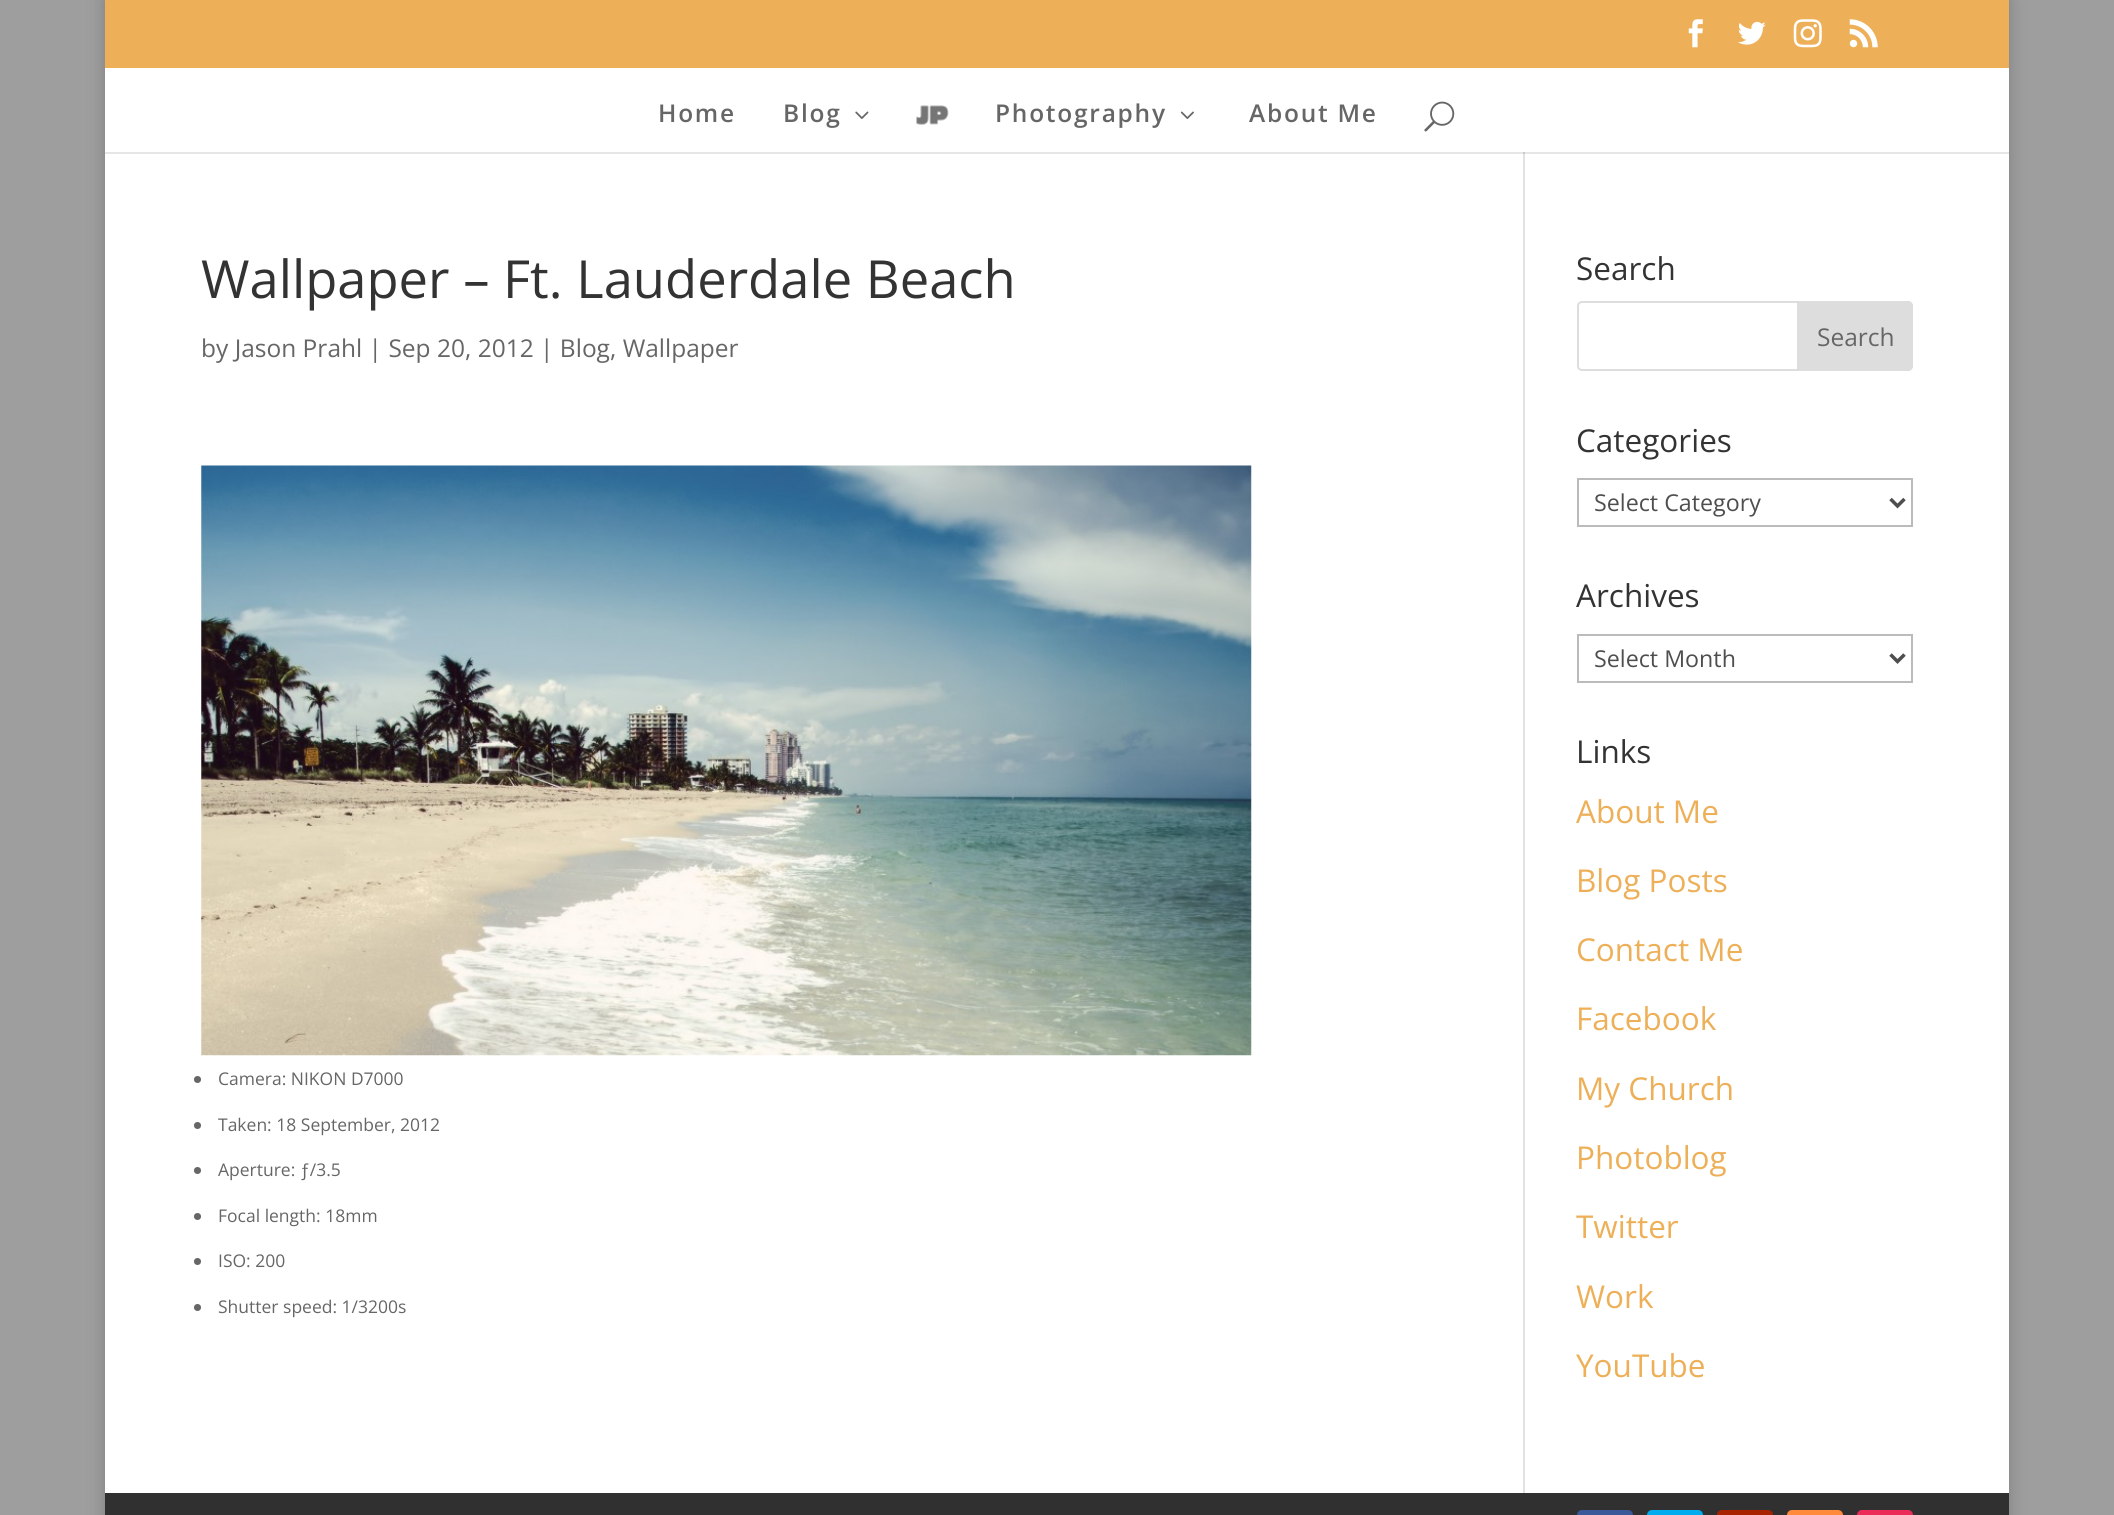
import math
import cairo


def write_spaced(ctx, x, y, s, letter, word):
	ctx.move_to(x, y)
	for ch in s:
		ctx.show_text(ch)
		ctx.rel_move_to(letter + word * (ch == ' '), 0)

def round_path(ctx, x, y, w, h, r):
	ctx.new_sub_path()
	for i, (u, v) in enumerate([(x + w - r, y + h - r), (x + r, y + h - r), (x + r, y + r), (x + w - r, y + r)]):
		ctx.arc(u, v, r, i * math.pi / 2, (i + 1) * math.pi / 2)
	ctx.close_path()

def blur_box(ctx, x, y, w, h, r, blur, alpha):
	ctx.push_group_with_content(cairo.CONTENT_ALPHA)
	ctx.set_operator(cairo.OPERATOR_SOURCE)
	for i in range(15, -16, -2):
		e = blur * i / 6
		if min(w, h) + 2 * e > 0:
			ctx.set_source_rgba(0, 0, 0, alpha * math.erfc((i - 1) / 8.5) / 2)
			round_path(ctx, x - e, y - e, w + 2 * e, h + 2 * e, max(0, min(r + e + blur * .6, min(w, h) / 2 + e)))
			ctx.fill()
	ctx.mask(ctx.pop_group())

def paste(ctx, path, x, y, w, h):
	ctx.save()
	ctx.set_source_surface(cairo.ImageSurface.create_from_png(path), x, y)
	ctx.rectangle(x, y, w, h)
	ctx.fill()
	ctx.restore()

def draw(ctx):
	ctx.set_source_rgb(0.62, 0.62, 0.62)
	ctx.paint()
	ctx.set_source_rgb(0, 0, 0)
	blur_box(ctx, 105, 0, 1904, 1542, 0, 9, 0.2)
	ctx.set_source_rgb(0.929, 0.69, 0.349)
	ctx.rectangle(105, 0, 1904, 68)
	ctx.fill()
	paste(ctx, 'media/1.png', 1688, 19, 15, 29)
	paste(ctx, 'media/2.png', 1738, 21, 28, 24)
	paste(ctx, 'media/3.png', 1793, 19, 29, 29)
	paste(ctx, 'media/4.png', 1849, 19, 29, 29)
	ctx.set_source_rgb(1, 1, 1)
	ctx.rectangle(105, 154, 1904, 1339)
	ctx.fill()
	ctx.set_source_rgb(0.902, 0.902, 0.902)
	ctx.rectangle(105, 152, 1904, 2)
	ctx.fill()
	ctx.set_source_rgb(0.886, 0.886, 0.886)
	ctx.rectangle(1523, 151, 2, 1342)
	ctx.fill()
	ctx.set_source_rgb(1, 1, 1)
	ctx.rectangle(105, 68, 1904, 84)
	ctx.fill()
	ctx.select_font_face('Open Sans SemiBold')
	ctx.set_font_size(24.5)
	ctx.set_source_rgb(0.4, 0.4, 0.4)
	write_spaced(ctx, 658, 122, 'Home', 1.75, 0)
	write_spaced(ctx, 783, 122, 'Blog', 1.75, 0)
	paste(ctx, 'media/5.png', 855, 111, 14, 8)
	paste(ctx, 'media/6.png', 916, 105, 33, 20)
	write_spaced(ctx, 995, 122, 'Photography', 1.75, 0)
	paste(ctx, 'media/7.png', 1180, 111, 14, 8)
	write_spaced(ctx, 1249, 122, 'About Me', 1.75, 0)
	paste(ctx, 'media/8.png', 1424, 101, 31, 31)
	ctx.set_source_rgb(0.796, 0.796, 0.796)
	ctx.rectangle(1523, 152, 2, 2)
	ctx.fill()
	ctx.select_font_face('Open Sans')
	ctx.set_font_size(52.5)
	ctx.set_source_rgb(0.2, 0.2, 0.2)
	ctx.move_to(201, 298)
	ctx.show_text('Wallpaper – Ft. Lauderdale Beach')
	ctx.set_font_size(24.5)
	ctx.set_source_rgb(0.4, 0.4, 0.4)
	ctx.move_to(201, 357)
	ctx.show_text('by Jason Prahl | Sep 20, 2012 | Blog, Wallpaper')
	paste(ctx, 'media/9.png', 201, 465, 1051, 591)
	ctx.arc(197.5, 1079.5, 3.5, 0, 2 * math.pi)
	ctx.fill()
	ctx.set_font_size(17.5)
	ctx.move_to(218, 1085)
	ctx.show_text('Camera: NIKON D7000')
	ctx.new_path()
	ctx.arc(197.5, 1125.5, 3.5, 0, 2 * math.pi)
	ctx.fill()
	ctx.move_to(218, 1131)
	ctx.show_text('Taken: 18 September, 2012')
	ctx.new_path()
	ctx.arc(197.5, 1170.5, 3.5, 0, 2 * math.pi)
	ctx.fill()
	ctx.move_to(218, 1176)
	ctx.show_text('Aperture: ƒ/3.5')
	ctx.new_path()
	ctx.arc(197.5, 1216.5, 3.5, 0, 2 * math.pi)
	ctx.fill()
	ctx.move_to(218, 1222)
	ctx.show_text('Focal length: 18mm')
	ctx.new_path()
	ctx.arc(197.5, 1261.5, 3.5, 0, 2 * math.pi)
	ctx.fill()
	ctx.move_to(218, 1267)
	ctx.show_text('ISO: 200')
	ctx.new_path()
	ctx.arc(197.5, 1307.5, 3.5, 0, 2 * math.pi)
	ctx.fill()
	ctx.move_to(218, 1313)
	ctx.show_text('Shutter speed: 1/3200s')
	ctx.set_font_size(31.5)
	ctx.set_source_rgb(0.2, 0.2, 0.2)
	ctx.move_to(1576, 280)
	ctx.show_text('Search')
	round_path(ctx, 1578, 302, 334, 68, 4)
	ctx.set_source_rgb(0.867, 0.867, 0.867)
	ctx.stroke()
	ctx.new_path()
	ctx.move_to(1798, 302)
	ctx.line_to(1908, 302)
	ctx.curve_to(1910, 302, 1912, 304, 1912, 306)
	ctx.line_to(1912, 366)
	ctx.curve_to(1912, 368, 1910, 370, 1908, 370)
	ctx.line_to(1798, 370)
	ctx.close_path()
	ctx.fill_preserve()
	ctx.stroke()
	ctx.set_font_size(24.5)
	ctx.set_source_rgb(0.4, 0.4, 0.4)
	ctx.move_to(1817, 346)
	ctx.show_text('Search')
	ctx.set_font_size(31.5)
	ctx.set_source_rgb(0.2, 0.2, 0.2)
	ctx.move_to(1576, 452)
	ctx.show_text('Categories')
	ctx.rectangle(1578, 479, 334, 47)
	ctx.set_source_rgb(0.733, 0.733, 0.733)
	ctx.stroke()
	ctx.new_path()
	ctx.move_to(1890.5, 499)
	ctx.line_to(1897.5, 506)
	ctx.line_to(1904.5, 499)
	ctx.set_source_rgb(0.306, 0.306, 0.306)
	ctx.set_line_width(3.5)
	ctx.stroke()
	ctx.set_font_size(23.25)
	ctx.move_to(1594, 511)
	ctx.show_text('Select Category')
	ctx.set_font_size(31.5)
	ctx.set_source_rgb(0.2, 0.2, 0.2)
	ctx.move_to(1576, 607)
	ctx.show_text('Archives')
	ctx.rectangle(1578, 635, 334, 47)
	ctx.set_source_rgb(0.733, 0.733, 0.733)
	ctx.set_line_width(2)
	ctx.stroke()
	ctx.new_path()
	ctx.move_to(1890.5, 654.5)
	ctx.line_to(1897.5, 661.5)
	ctx.line_to(1904.5, 654.5)
	ctx.set_source_rgb(0.306, 0.306, 0.306)
	ctx.set_line_width(3.5)
	ctx.stroke()
	ctx.set_font_size(23.25)
	ctx.move_to(1594, 667)
	ctx.show_text('Select Month')
	ctx.set_font_size(31.5)
	ctx.set_source_rgb(0.2, 0.2, 0.2)
	ctx.move_to(1576, 763)
	ctx.show_text('Links')
	ctx.set_source_rgb(0.929, 0.69, 0.349)
	for x, y, s in [
		(1576, 823, 'About Me'),
		(1576, 892, 'Blog Posts'),
		(1576, 961, 'Contact Me'),
		(1576, 1030, 'Facebook'),
		(1576, 1100, 'My Church'),
		(1576, 1169, 'Photoblog'),
		(1576, 1238, 'Twitter'),
		(1576, 1308, 'Work'),
		(1576, 1377, 'YouTube'),
	]:
		ctx.move_to(x, y)
		ctx.show_text(s)
	ctx.set_source_rgb(0.188, 0.188, 0.188)
	ctx.rectangle(105, 1493, 1904, 22)
	ctx.fill()
	ctx.set_source_rgb(0.231, 0.349, 0.596)
	round_path(ctx, 1577, 1510, 56, 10, 5)
	ctx.fill()
	ctx.set_source_rgb(0, 0.675, 0.929)
	round_path(ctx, 1647, 1510, 56, 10, 5)
	ctx.fill()
	ctx.set_source_rgb(0.659, 0.141, 0)
	round_path(ctx, 1717, 1510, 56, 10, 5)
	ctx.fill()
	ctx.set_source_rgb(1, 0.541, 0.235)
	round_path(ctx, 1787, 1510, 56, 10, 5)
	ctx.fill()
	ctx.set_source_rgb(0.918, 0.173, 0.349)
	round_path(ctx, 1857, 1510, 56, 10, 5)
	ctx.fill()


surface = cairo.ImageSurface(cairo.FORMAT_RGB24, 2114, 1515)
ctx = cairo.Context(surface)
options = cairo.FontOptions()
options.set_hint_metrics(cairo.HINT_METRICS_OFF)
options.set_hint_style(cairo.HINT_STYLE_NONE)
ctx.set_font_options(options)
ctx.set_miter_limit(4)
draw(ctx)
surface.write_to_png('image.png')
